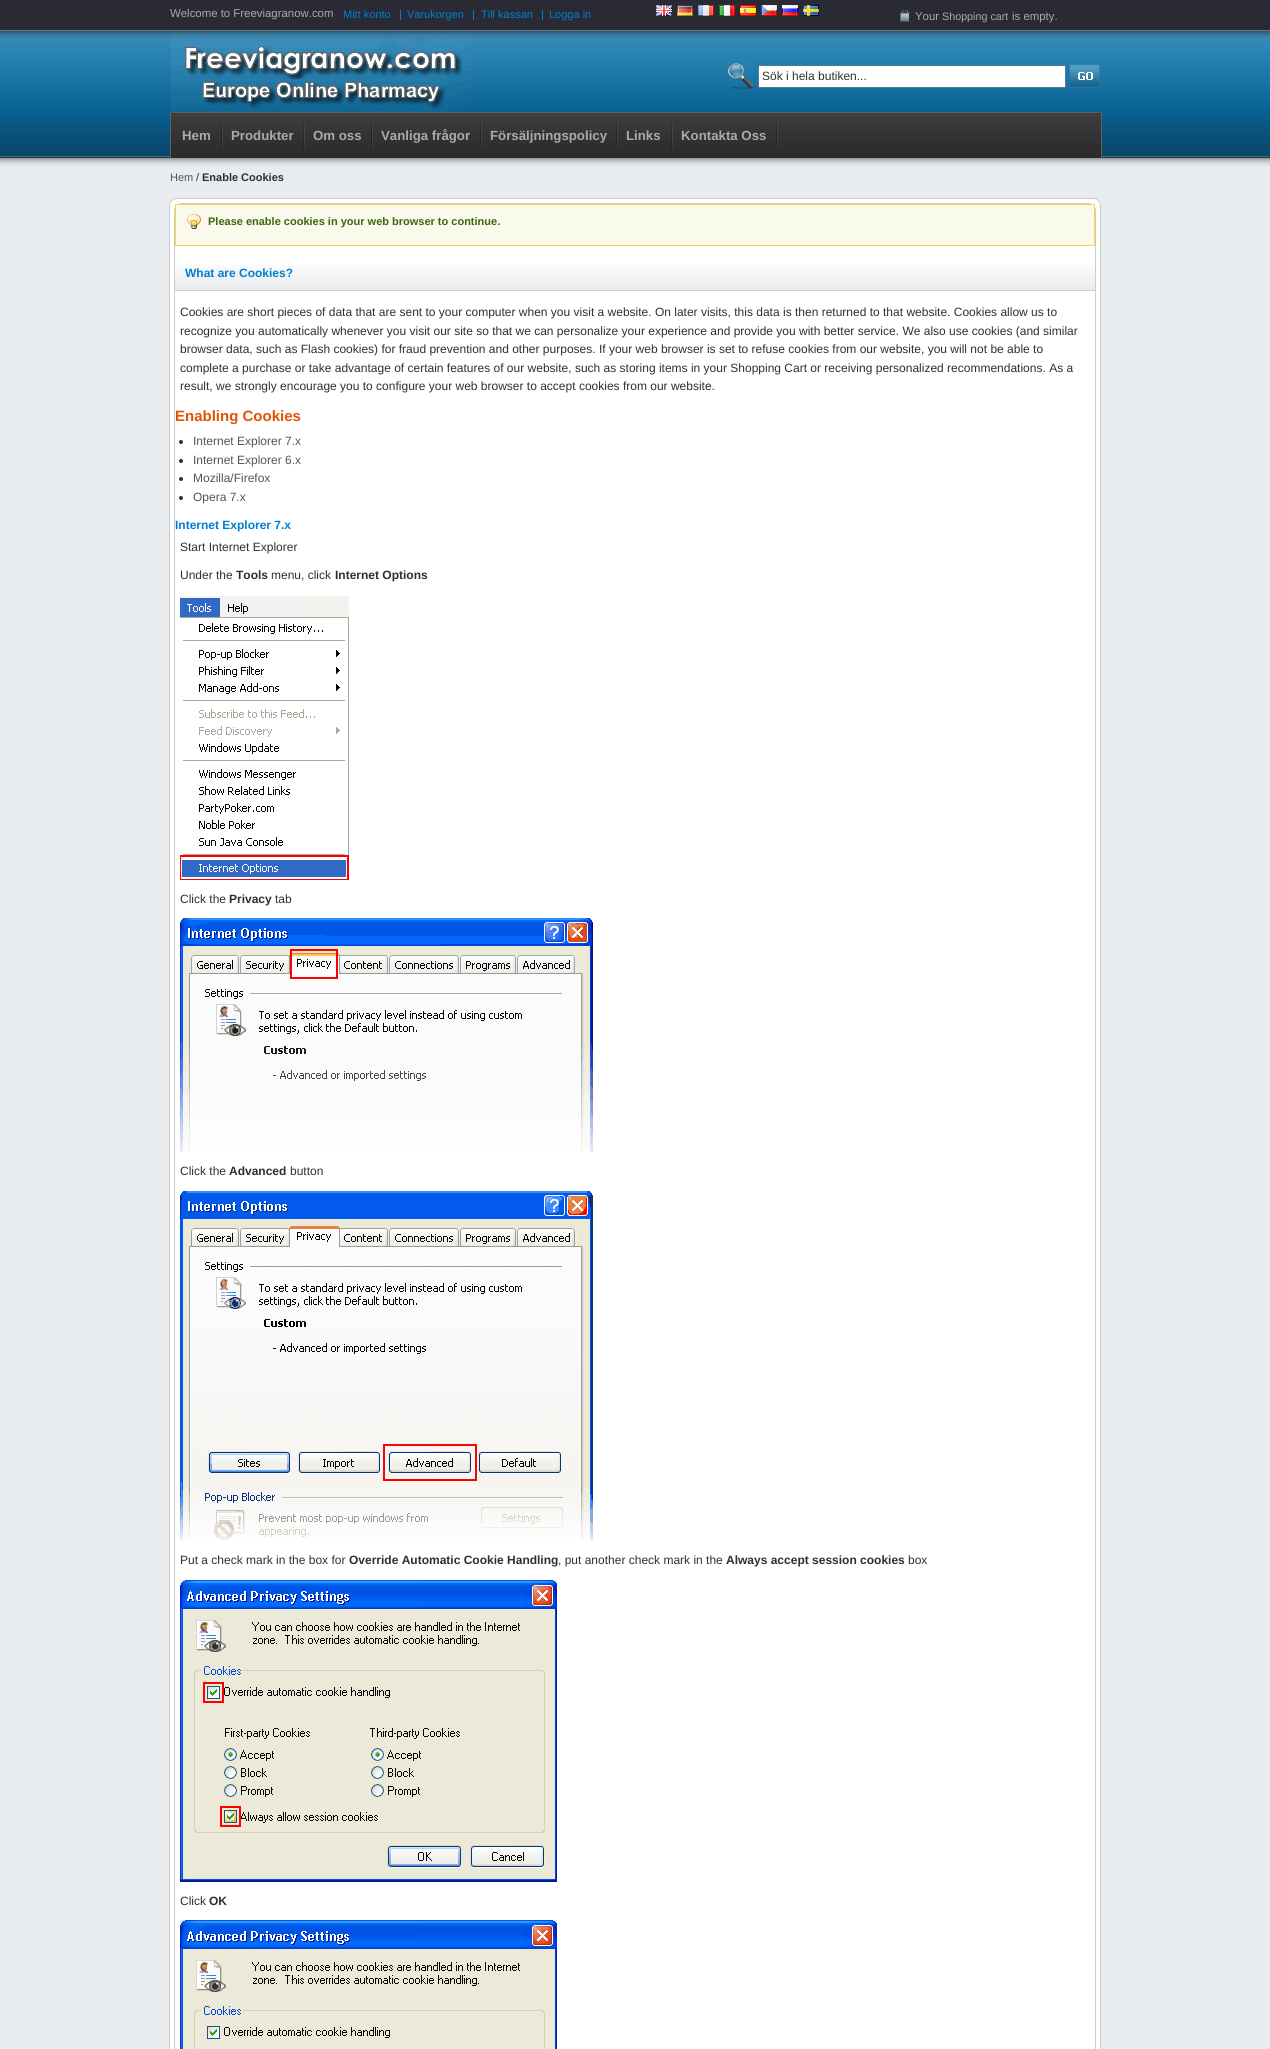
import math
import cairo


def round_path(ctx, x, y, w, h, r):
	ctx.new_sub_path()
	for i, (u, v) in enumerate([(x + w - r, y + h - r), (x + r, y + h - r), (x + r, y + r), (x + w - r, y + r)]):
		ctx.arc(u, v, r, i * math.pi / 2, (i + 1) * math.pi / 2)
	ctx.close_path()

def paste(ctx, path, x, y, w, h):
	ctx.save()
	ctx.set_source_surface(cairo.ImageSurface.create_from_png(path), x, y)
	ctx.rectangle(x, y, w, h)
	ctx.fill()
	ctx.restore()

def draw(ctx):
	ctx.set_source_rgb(0.914, 0.925, 0.933)
	ctx.paint()
	paste(ctx, 'media/1.png', 0, 0, 1270, 158)
	ctx.select_font_face('Liberation Sans')
	ctx.set_font_size(11.4)
	ctx.set_source_rgb(0.667, 0.667, 0.667)
	ctx.move_to(170, 17)
	ctx.show_text('Welcome to Freeviagranow.com')
	ctx.set_font_size(11)
	ctx.set_source_rgb(0, 0.494, 0.827)
	ctx.move_to(343, 18)
	ctx.show_text('Mitt konto')
	ctx.rectangle(400, 10, 1, 10)
	ctx.fill()
	ctx.move_to(407, 18)
	ctx.show_text('Varukorgen')
	ctx.rectangle(473, 10, 1, 10)
	ctx.fill()
	ctx.move_to(481, 18)
	ctx.show_text('Till kassan')
	ctx.rectangle(542, 10, 1, 10)
	ctx.fill()
	ctx.move_to(549, 18)
	ctx.show_text('Logga in')
	paste(ctx, 'media/2.png', 656, 5, 16, 11)
	paste(ctx, 'media/3.png', 677, 5, 16, 11)
	paste(ctx, 'media/4.png', 698, 5, 16, 11)
	paste(ctx, 'media/5.png', 719, 5, 16, 11)
	paste(ctx, 'media/6.png', 740, 5, 16, 11)
	paste(ctx, 'media/7.png', 761, 5, 16, 11)
	paste(ctx, 'media/8.png', 782, 5, 16, 11)
	paste(ctx, 'media/9.png', 803, 5, 16, 11)
	paste(ctx, 'media/10.png', 900, 10, 10, 12)
	ctx.set_font_size(11.4)
	ctx.set_source_rgb(0.667, 0.667, 0.667)
	ctx.move_to(915, 20)
	ctx.show_text('Your')
	ctx.set_font_size(10.75)
	ctx.move_to(942, 20)
	ctx.show_text('Shopping cart')
	ctx.set_font_size(11.4)
	ctx.move_to(1012, 20)
	ctx.show_text('is empty.')
	paste(ctx, 'media/11.png', 170, 33, 302, 79)
	paste(ctx, 'media/12.png', 728, 63, 26, 26)
	ctx.set_source_rgb(1, 1, 1)
	ctx.rectangle(758.5, 65.5, 307, 22)
	ctx.fill_preserve()
	ctx.set_source_rgb(0.318, 0.482, 0.573)
	ctx.set_line_width(1)
	ctx.stroke()
	ctx.set_font_size(12)
	ctx.set_source_rgb(0.184, 0.184, 0.184)
	ctx.move_to(762, 80)
	ctx.show_text('Sök i hela butiken...')
	paste(ctx, 'media/13.png', 1069, 64, 31, 24)
	paste(ctx, 'media/14.png', 171, 113, 930, 45)
	ctx.set_source_rgb(0.376, 0.376, 0.376)
	ctx.rectangle(170, 112, 932, 1)
	ctx.rectangle(1101, 112, 1, 46)
	ctx.rectangle(170, 112, 1, 46)
	ctx.fill()
	paste(ctx, 'media/15.png', 221, 121, 2, 30)
	ctx.select_font_face('Liberation Sans', cairo.FONT_SLANT_NORMAL, cairo.FONT_WEIGHT_BOLD)
	ctx.set_font_size(13.25)
	ctx.set_source_rgb(0.667, 0.667, 0.667)
	ctx.move_to(182, 140)
	ctx.show_text('Hem')
	paste(ctx, 'media/15.png', 303, 121, 2, 30)
	ctx.move_to(231, 140)
	ctx.show_text('Produkter')
	paste(ctx, 'media/15.png', 371, 121, 2, 30)
	ctx.move_to(313, 140)
	ctx.show_text('Om oss')
	paste(ctx, 'media/15.png', 480, 121, 2, 30)
	ctx.move_to(381, 140)
	ctx.show_text('Vanliga frågor')
	paste(ctx, 'media/15.png', 616, 121, 2, 30)
	ctx.move_to(490, 140)
	ctx.show_text('Försäljningspolicy')
	paste(ctx, 'media/15.png', 671, 121, 2, 30)
	ctx.move_to(626, 140)
	ctx.show_text('Links')
	paste(ctx, 'media/15.png', 776, 121, 2, 30)
	ctx.move_to(681, 140)
	ctx.show_text('Kontakta Oss')
	paste(ctx, 'media/16.png', 0, 158, 1270, 8)
	ctx.select_font_face('Liberation Sans')
	ctx.set_font_size(11)
	ctx.set_source_rgb(0.333, 0.329, 0.322)
	ctx.move_to(170, 181)
	ctx.show_text('Hem')
	ctx.set_source_rgb(0.184, 0.184, 0.184)
	ctx.move_to(196, 181)
	ctx.show_text('/')
	ctx.select_font_face('Liberation Sans', cairo.FONT_SLANT_NORMAL, cairo.FONT_WEIGHT_BOLD)
	ctx.move_to(202, 181)
	ctx.show_text('Enable Cookies')
	ctx.set_source_rgb(1, 1, 1)
	round_path(ctx, 169.5, 198.5, 931, 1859, 7.5)
	ctx.fill_preserve()
	ctx.set_source_rgb(0.8, 0.8, 0.8)
	ctx.stroke()
	round_path(ctx, 174.5, 203.5, 921, 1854, 7.5)
	ctx.stroke()
	ctx.set_source_rgb(0.98, 0.98, 0.925)
	ctx.rectangle(176, 205, 918, 40)
	ctx.fill()
	paste(ctx, 'media/17.png', 187, 214, 14, 15)
	ctx.rectangle(175.5, 204.5, 919, 41)
	ctx.set_source_rgb(0.988, 0.827, 0.267)
	ctx.stroke()
	ctx.set_source_rgb(0.239, 0.4, 0.067)
	ctx.move_to(208, 225)
	ctx.show_text('Please enable cookies in your web browser to continue.')
	paste(ctx, 'media/18.png', 175, 265, 920, 25)
	ctx.set_source_rgb(0.8, 0.8, 0.8)
	ctx.rectangle(175, 290, 920, 1)
	ctx.fill()
	ctx.set_font_size(12)
	ctx.set_source_rgb(0, 0.494, 0.827)
	ctx.move_to(185, 277)
	ctx.show_text('What are Cookies?')
	ctx.select_font_face('Liberation Sans')
	ctx.set_source_rgb(0.184, 0.184, 0.184)
	for x, y, s in [
		(180, 316, 'Cookies are short pieces of data that are sent to your computer when you visit a website. On later visits, this data is then returned to that website. Cookies allow us to'),
		(180, 335, 'recognize you automatically whenever you visit our site so that we can personalize your experience and provide you with better service. We also use cookies (and similar'),
		(180, 353, 'browser data, such as Flash cookies) for fraud prevention and other purposes. If your web browser is set to refuse cookies from our website, you will not be able to'),
		(180, 372, 'complete a purchase or take advantage of certain features of our website, such as storing items in your Shopping Cart or receiving personalized recommendations. As a'),
		(180, 390, 'result, we strongly encourage you to configure your web browser to accept cookies from our website.'),
	]:
		ctx.move_to(x, y)
		ctx.show_text(s)
	ctx.select_font_face('Liberation Sans', cairo.FONT_SLANT_NORMAL, cairo.FONT_WEIGHT_BOLD)
	ctx.set_font_size(15)
	ctx.set_source_rgb(0.886, 0.322, 0.012)
	ctx.move_to(175, 421)
	ctx.show_text('Enabling Cookies')
	ctx.set_source_rgb(0.184, 0.184, 0.184)
	ctx.new_path()
	ctx.arc(181, 442, 2, 0, 2 * math.pi)
	ctx.fill()
	ctx.select_font_face('Liberation Sans')
	ctx.set_font_size(12)
	ctx.set_source_rgb(0.333, 0.329, 0.322)
	ctx.move_to(193, 445)
	ctx.show_text('Internet Explorer 7.x')
	ctx.set_source_rgb(0.184, 0.184, 0.184)
	ctx.new_path()
	ctx.arc(181, 461, 2, 0, 2 * math.pi)
	ctx.fill()
	ctx.set_source_rgb(0.333, 0.329, 0.322)
	ctx.move_to(193, 464)
	ctx.show_text('Internet Explorer 6.x')
	ctx.set_source_rgb(0.184, 0.184, 0.184)
	ctx.new_path()
	ctx.arc(181, 479, 2, 0, 2 * math.pi)
	ctx.fill()
	ctx.set_source_rgb(0.333, 0.329, 0.322)
	ctx.move_to(193, 482)
	ctx.show_text('Mozilla/Firefox')
	ctx.set_source_rgb(0.184, 0.184, 0.184)
	ctx.new_path()
	ctx.arc(181, 498, 2, 0, 2 * math.pi)
	ctx.fill()
	ctx.set_source_rgb(0.333, 0.329, 0.322)
	ctx.move_to(193, 501)
	ctx.show_text('Opera 7.x')
	ctx.select_font_face('Liberation Sans', cairo.FONT_SLANT_NORMAL, cairo.FONT_WEIGHT_BOLD)
	ctx.set_source_rgb(0, 0.494, 0.827)
	ctx.move_to(175, 529)
	ctx.show_text('Internet Explorer 7.x')
	ctx.select_font_face('Liberation Sans')
	ctx.set_source_rgb(0.184, 0.184, 0.184)
	ctx.move_to(180, 551)
	ctx.show_text('Start Internet Explorer')
	ctx.move_to(180, 579)
	ctx.show_text('Under the')
	ctx.select_font_face('Liberation Sans', cairo.FONT_SLANT_NORMAL, cairo.FONT_WEIGHT_BOLD)
	ctx.move_to(236, 579)
	ctx.show_text('Tools')
	ctx.select_font_face('Liberation Sans')
	ctx.move_to(271, 579)
	ctx.show_text('menu, click')
	ctx.select_font_face('Liberation Sans', cairo.FONT_SLANT_NORMAL, cairo.FONT_WEIGHT_BOLD)
	ctx.move_to(335, 579)
	ctx.show_text('Internet Options')
	paste(ctx, 'media/19.png', 180, 596, 169, 284)
	ctx.select_font_face('Liberation Sans')
	ctx.move_to(180, 903)
	ctx.show_text('Click the')
	ctx.select_font_face('Liberation Sans', cairo.FONT_SLANT_NORMAL, cairo.FONT_WEIGHT_BOLD)
	ctx.move_to(229, 903)
	ctx.show_text('Privacy')
	ctx.select_font_face('Liberation Sans')
	ctx.move_to(275, 903)
	ctx.show_text('tab')
	paste(ctx, 'media/20.png', 180, 918, 413, 234)
	ctx.move_to(180, 1175)
	ctx.show_text('Click the')
	ctx.select_font_face('Liberation Sans', cairo.FONT_SLANT_NORMAL, cairo.FONT_WEIGHT_BOLD)
	ctx.move_to(229, 1175)
	ctx.show_text('Advanced')
	ctx.select_font_face('Liberation Sans')
	ctx.move_to(290, 1175)
	ctx.show_text('button')
	paste(ctx, 'media/21.png', 180, 1191, 413, 350)
	ctx.move_to(180, 1564)
	ctx.show_text('Put a check mark in the box for')
	ctx.select_font_face('Liberation Sans', cairo.FONT_SLANT_NORMAL, cairo.FONT_WEIGHT_BOLD)
	ctx.move_to(349, 1564)
	ctx.show_text('Override Automatic Cookie Handling')
	ctx.select_font_face('Liberation Sans')
	ctx.move_to(558, 1564)
	ctx.show_text(', put another check mark in the')
	ctx.select_font_face('Liberation Sans', cairo.FONT_SLANT_NORMAL, cairo.FONT_WEIGHT_BOLD)
	ctx.move_to(726, 1564)
	ctx.show_text('Always accept session cookies')
	ctx.select_font_face('Liberation Sans')
	ctx.move_to(908, 1564)
	ctx.show_text('box')
	paste(ctx, 'media/22.png', 180, 1580, 377, 302)
	ctx.move_to(180, 1905)
	ctx.show_text('Click')
	ctx.select_font_face('Liberation Sans', cairo.FONT_SLANT_NORMAL, cairo.FONT_WEIGHT_BOLD)
	ctx.move_to(209, 1905)
	ctx.show_text('OK')
	paste(ctx, 'media/23.png', 180, 1920, 377, 129)


surface = cairo.ImageSurface(cairo.FORMAT_RGB24, 1270, 2049)
ctx = cairo.Context(surface)
options = cairo.FontOptions()
options.set_hint_metrics(cairo.HINT_METRICS_OFF)
options.set_hint_style(cairo.HINT_STYLE_NONE)
ctx.set_font_options(options)
ctx.set_miter_limit(4)
draw(ctx)
surface.write_to_png('image.png')
